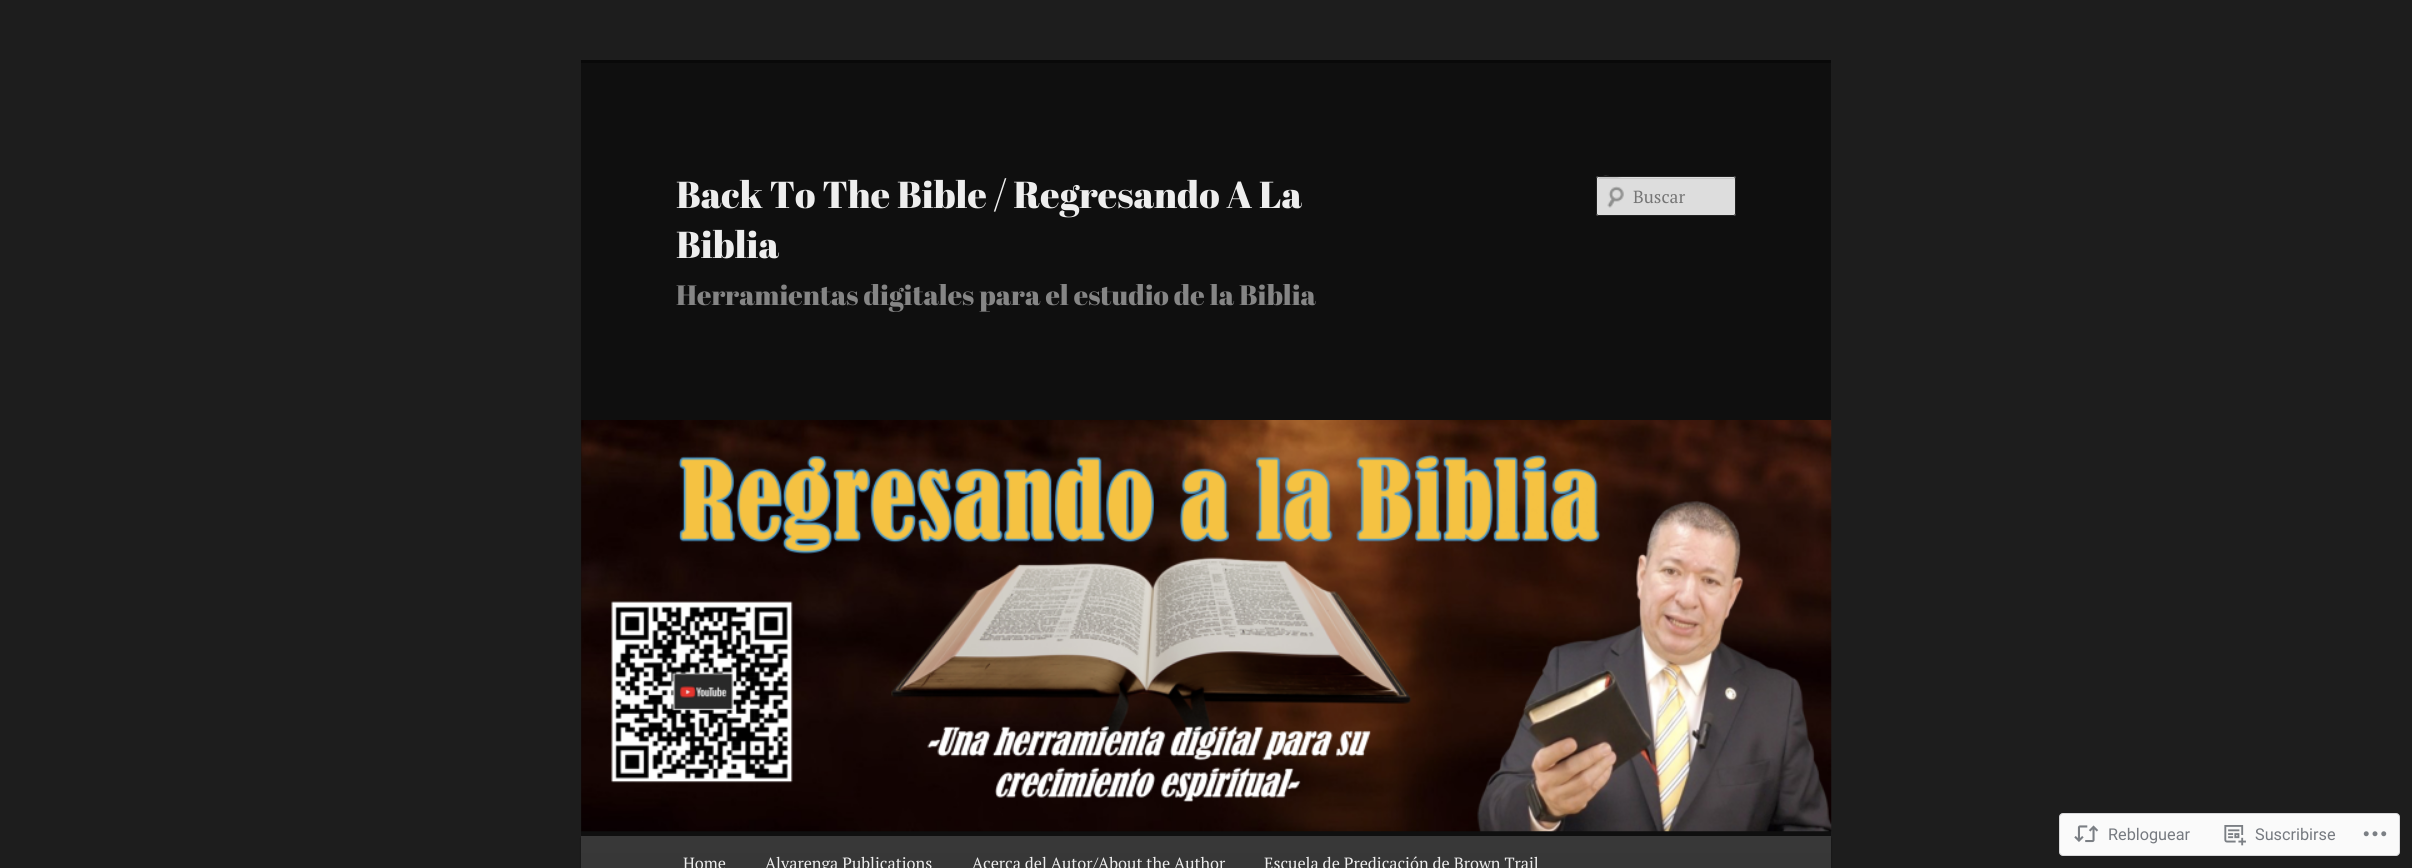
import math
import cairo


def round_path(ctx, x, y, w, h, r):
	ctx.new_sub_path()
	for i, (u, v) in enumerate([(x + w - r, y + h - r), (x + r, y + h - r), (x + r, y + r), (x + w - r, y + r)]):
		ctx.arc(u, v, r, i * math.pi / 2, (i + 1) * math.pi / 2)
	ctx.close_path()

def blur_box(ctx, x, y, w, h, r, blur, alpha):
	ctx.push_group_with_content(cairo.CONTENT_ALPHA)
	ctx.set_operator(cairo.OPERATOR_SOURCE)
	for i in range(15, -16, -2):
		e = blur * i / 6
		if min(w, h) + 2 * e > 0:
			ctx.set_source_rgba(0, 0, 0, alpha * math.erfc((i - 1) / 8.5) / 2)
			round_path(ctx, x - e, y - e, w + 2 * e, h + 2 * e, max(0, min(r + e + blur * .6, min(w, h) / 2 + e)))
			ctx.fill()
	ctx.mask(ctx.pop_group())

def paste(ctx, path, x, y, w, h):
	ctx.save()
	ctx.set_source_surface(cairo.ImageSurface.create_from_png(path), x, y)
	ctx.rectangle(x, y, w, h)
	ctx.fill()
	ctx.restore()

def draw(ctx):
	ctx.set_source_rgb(0.114, 0.114, 0.114)
	ctx.paint()
	ctx.set_source_rgb(0.059, 0.059, 0.059)
	ctx.rectangle(581, 63, 1250, 773)
	ctx.fill()
	ctx.set_source_rgb(0.039, 0.039, 0.039)
	ctx.rectangle(581, 60, 1250, 3)
	ctx.fill()
	ctx.select_font_face('Abril Fatface')
	ctx.set_font_size(37.5)
	ctx.set_source_rgb(0.933, 0.933, 0.933)
	ctx.move_to(676, 208)
	ctx.show_text('Back To The Bible / Regresando A La')
	ctx.move_to(676, 258)
	ctx.show_text('Biblia')
	ctx.set_font_size(28)
	ctx.set_source_rgb(0.522, 0.522, 0.522)
	ctx.move_to(676, 305)
	ctx.show_text('Herramientas digitales para el estudio de la Biblia')
	ctx.set_source_rgb(0.867, 0.867, 0.867)
	round_path(ctx, 1596, 176, 140, 40, 2.5)
	ctx.fill()
	paste(ctx, 'media/1.png', 1607, 186, 17, 22)
	ctx.set_source_rgb(0.78, 0.78, 0.78)
	ctx.new_path()
	ctx.move_to(1599, 179)
	ctx.line_to(1734, 179)
	ctx.line_to(1735, 180)
	ctx.line_to(1735, 178)
	ctx.line_to(1622, 178)
	ctx.curve_to(1621, 178, 1598, 172, 1598, 180)
	ctx.curve_to(1598, 179, 1598, 179, 1599, 179)
	ctx.close_path()
	ctx.fill()
	round_path(ctx, 1596.5, 176.5, 139, 39, 2)
	ctx.set_source_rgb(0.133, 0.133, 0.133)
	ctx.set_line_width(1)
	ctx.stroke()
	ctx.select_font_face('PT Serif')
	ctx.set_font_size(17.5)
	ctx.set_source_rgb(0.459, 0.459, 0.459)
	ctx.move_to(1633, 203)
	ctx.show_text('Buscar')
	paste(ctx, 'media/2.png', 581, 420, 1251, 412)
	ctx.set_source_rgb(0, 0, 0)
	blur_box(ctx, 581, 838, 1250, 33, 0, 1, 0.4)
	gradient = cairo.LinearGradient(1206, 836, 1206, 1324)
	gradient.add_color_stop_rgba(0, 0.22, 0.22, 0.22, 1)
	gradient.add_color_stop_rgba(1, 0.153, 0.153, 0.153, 1)
	ctx.set_source(gradient)
	ctx.rectangle(581, 836, 1250, 32)
	ctx.fill()
	ctx.set_font_size(16.25)
	ctx.set_source_rgb(0.933, 0.933, 0.933)
	for x, y, s in [
		(683, 869, 'Home'),
		(765, 869, 'Alvarenga Publications'),
		(972, 869, 'Acerca del Autor/About the Author'),
		(1264, 869, 'Escuela de Predicación de Brown Trail'),
	]:
		ctx.move_to(x, y)
		ctx.show_text(s)
	ctx.set_source_rgb(0.98, 0.98, 0.98)
	round_path(ctx, 2059.5, 813.5, 340, 42, 3.5)
	ctx.fill_preserve()
	ctx.set_source_rgb(0.847, 0.847, 0.855)
	ctx.stroke()
	paste(ctx, 'media/3.png', 2074, 825, 25, 18)
	ctx.select_font_face('Roboto')
	ctx.set_source_rgb(0.463, 0.478, 0.502)
	ctx.move_to(2108, 840)
	ctx.show_text('Rebloguear')
	paste(ctx, 'media/4.png', 2224, 825, 22, 21)
	ctx.move_to(2255, 840)
	ctx.show_text('Suscribirse')
	paste(ctx, 'media/5.png', 2363, 831, 24, 6)


surface = cairo.ImageSurface(cairo.FORMAT_RGB24, 2412, 868)
ctx = cairo.Context(surface)
options = cairo.FontOptions()
options.set_hint_metrics(cairo.HINT_METRICS_OFF)
options.set_hint_style(cairo.HINT_STYLE_NONE)
ctx.set_font_options(options)
ctx.set_miter_limit(4)
draw(ctx)
surface.write_to_png('image.png')
